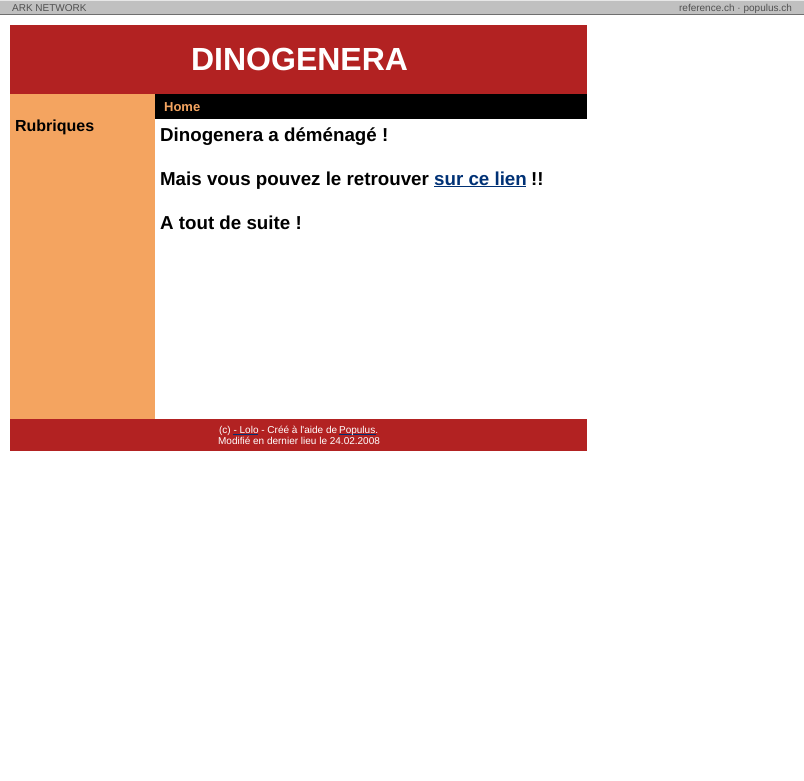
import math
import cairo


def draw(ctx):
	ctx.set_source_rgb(1, 1, 1)
	ctx.paint()
	ctx.set_source_rgb(0.906, 0.906, 0.906)
	ctx.rectangle(0, 0, 804, 1)
	ctx.fill()
	ctx.set_source_rgb(0.753, 0.753, 0.753)
	ctx.rectangle(0, 1, 804, 13)
	ctx.fill()
	ctx.select_font_face('Liberation Sans')
	ctx.set_font_size(10)
	ctx.set_source_rgb(0.314, 0.314, 0.314)
	ctx.move_to(12, 11)
	ctx.show_text('ARK NETWORK')
	ctx.move_to(679, 11)
	ctx.show_text('reference.ch · populus.ch')
	ctx.set_source_rgb(0.435, 0.435, 0.435)
	ctx.rectangle(0, 14, 804, 1)
	ctx.fill()
	ctx.set_source_rgb(0.698, 0.133, 0.133)
	ctx.rectangle(10, 25, 577, 69)
	ctx.fill()
	ctx.select_font_face('Liberation Sans', cairo.FONT_SLANT_NORMAL, cairo.FONT_WEIGHT_BOLD)
	ctx.set_font_size(32)
	ctx.set_source_rgb(1, 1, 1)
	ctx.move_to(191, 70)
	ctx.show_text('DINOGENERA')
	ctx.set_source_rgb(0, 0, 0)
	ctx.rectangle(155, 94, 432, 25)
	ctx.fill()
	ctx.set_font_size(13)
	ctx.set_source_rgb(0.957, 0.643, 0.376)
	ctx.move_to(164, 111)
	ctx.show_text('Home')
	ctx.rectangle(10, 94, 145, 325)
	ctx.fill()
	ctx.set_font_size(16)
	ctx.set_source_rgb(0, 0, 0)
	ctx.move_to(15, 131)
	ctx.show_text('Rubriques')
	ctx.set_font_size(18.75)
	ctx.move_to(160, 141)
	ctx.show_text('Dinogenera a déménagé !')
	ctx.move_to(160, 185)
	ctx.show_text('Mais vous pouvez le retrouver')
	ctx.set_source_rgb(0, 0.192, 0.459)
	ctx.move_to(434, 185)
	ctx.show_text('sur ce lien')
	ctx.rectangle(434, 186, 92, 1)
	ctx.fill()
	ctx.set_source_rgb(0, 0, 0)
	ctx.move_to(531, 185)
	ctx.show_text('!!')
	ctx.move_to(160, 229)
	ctx.show_text('A tout de suite !')
	ctx.set_source_rgb(0.698, 0.133, 0.133)
	ctx.rectangle(10, 419, 577, 32)
	ctx.fill()
	ctx.select_font_face('Liberation Sans')
	ctx.set_font_size(10)
	ctx.set_source_rgb(1, 1, 1)
	ctx.move_to(219, 433)
	ctx.show_text('(c) - Lolo - Créé à l\'aide de')
	ctx.set_source_rgb(0, 0.192, 0.459)
	ctx.rectangle(339, 434, 37, 1)
	ctx.fill()
	ctx.set_source_rgb(1, 1, 1)
	ctx.move_to(339, 433)
	ctx.show_text('Populus.')
	ctx.set_source_rgb(0, 0.192, 0.459)
	ctx.rectangle(233, 434, 25, 1)
	ctx.fill()
	ctx.set_source_rgb(1, 1, 1)
	ctx.move_to(218, 444)
	ctx.show_text('Modifié en dernier lieu le 24.02.2008')


surface = cairo.ImageSurface(cairo.FORMAT_RGB24, 804, 781)
ctx = cairo.Context(surface)
options = cairo.FontOptions()
options.set_hint_metrics(cairo.HINT_METRICS_OFF)
options.set_hint_style(cairo.HINT_STYLE_NONE)
ctx.set_font_options(options)
ctx.set_miter_limit(4)
draw(ctx)
surface.write_to_png('image.png')
